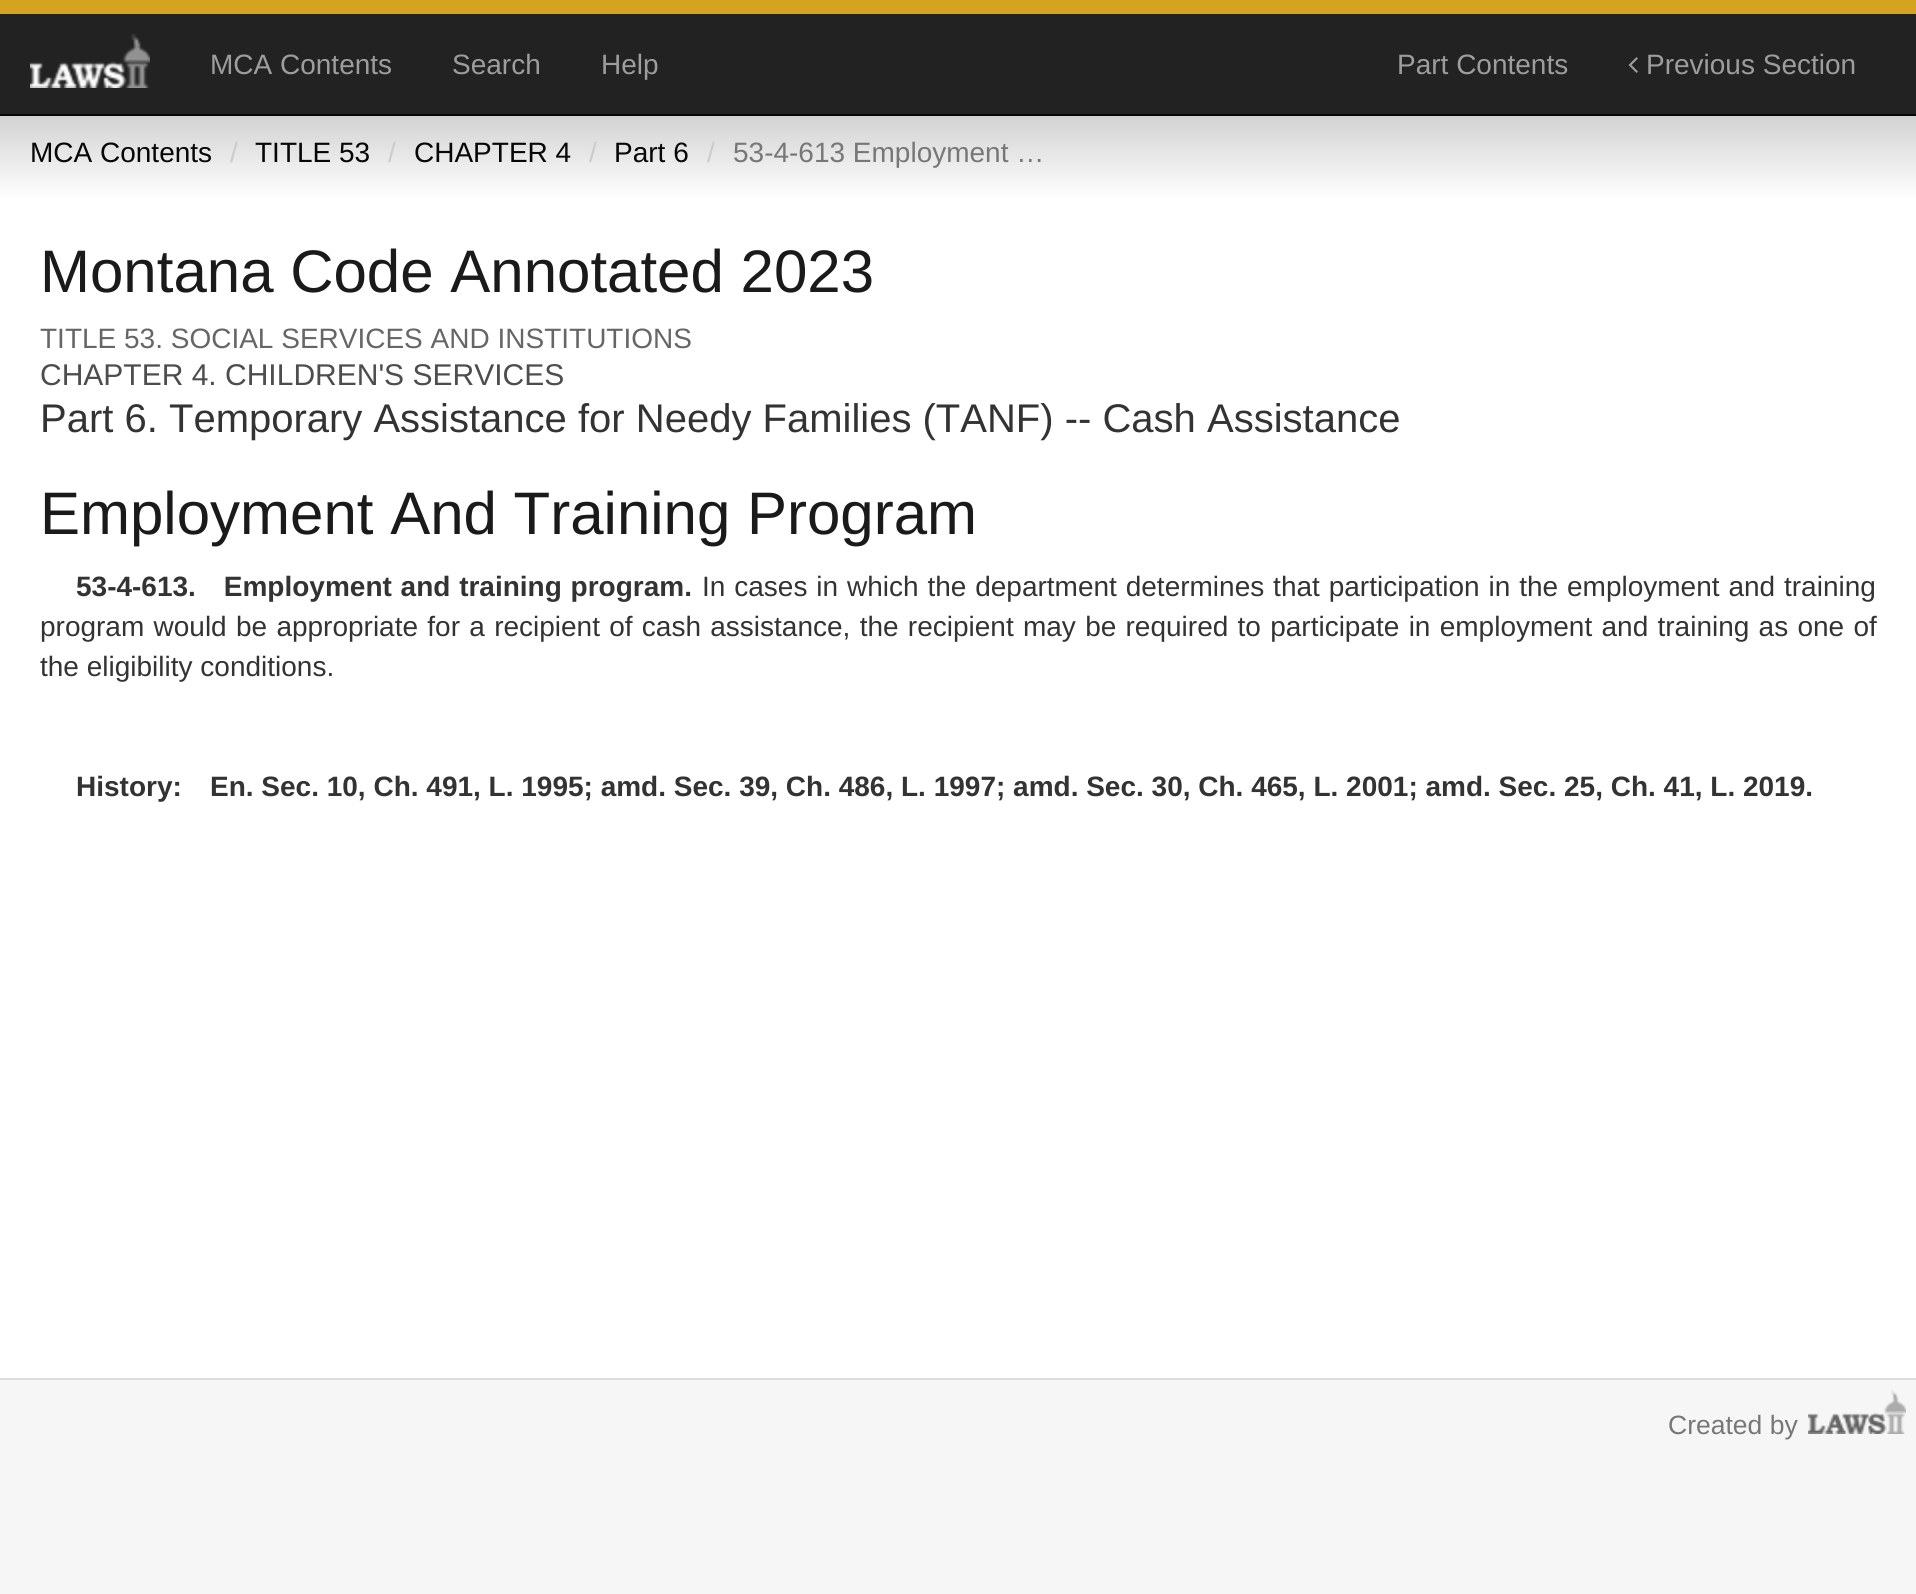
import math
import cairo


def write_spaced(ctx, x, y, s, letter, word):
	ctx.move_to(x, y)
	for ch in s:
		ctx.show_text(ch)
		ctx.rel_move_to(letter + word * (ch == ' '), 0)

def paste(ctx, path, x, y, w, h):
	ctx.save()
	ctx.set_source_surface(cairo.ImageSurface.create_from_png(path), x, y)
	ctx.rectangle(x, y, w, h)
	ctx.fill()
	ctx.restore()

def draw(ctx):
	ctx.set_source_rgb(0.961, 0.961, 0.961)
	ctx.paint()
	ctx.set_source_rgb(1, 1, 1)
	ctx.rectangle(0, 198, 1916, 1180)
	ctx.fill()
	ctx.set_source_rgb(0.133, 0.133, 0.133)
	ctx.rectangle(0, 14, 1916, 100)
	ctx.fill()
	ctx.set_source_rgb(0.831, 0.639, 0.125)
	ctx.rectangle(0, 0, 1916, 14)
	ctx.fill()
	ctx.set_source_rgb(0.031, 0.031, 0.031)
	ctx.rectangle(0, 114, 1916, 2)
	ctx.fill()
	paste(ctx, 'media/1.png', 30, 34, 120, 54)
	ctx.select_font_face('Liberation Sans')
	ctx.set_font_size(28)
	ctx.set_source_rgb(0.616, 0.616, 0.616)
	for x, y, s in [
		(210, 74, 'MCA Contents'),
		(452, 74, 'Search'),
		(601, 74, 'Help'),
		(1397, 74, 'Part Contents'),
	]:
		ctx.move_to(x, y)
		ctx.show_text(s)
	paste(ctx, 'media/2.png', 1628, 57, 10, 16)
	ctx.move_to(1646, 74)
	ctx.show_text('Previous Section')
	gradient = cairo.LinearGradient(958, 116, 958, 198)
	gradient.add_color_stop_rgba(0, 0.824, 0.824, 0.824, 1)
	gradient.add_color_stop_rgba(1, 0.996, 0.996, 0.996, 1)
	ctx.set_source(gradient)
	ctx.rectangle(0, 116, 1916, 82)
	ctx.fill()
	ctx.set_source_rgb(0.027, 0.027, 0.027)
	ctx.move_to(30, 162)
	ctx.show_text('MCA Contents')
	ctx.set_source_rgb(0.8, 0.8, 0.8)
	ctx.move_to(230, 162)
	ctx.show_text('/')
	ctx.set_source_rgb(0.027, 0.027, 0.027)
	ctx.move_to(255, 162)
	ctx.show_text('TITLE 53')
	ctx.set_source_rgb(0.8, 0.8, 0.8)
	ctx.move_to(388, 162)
	ctx.show_text('/')
	ctx.set_source_rgb(0.027, 0.027, 0.027)
	ctx.move_to(414, 162)
	ctx.show_text('CHAPTER 4')
	ctx.set_source_rgb(0.8, 0.8, 0.8)
	ctx.move_to(589, 162)
	ctx.show_text('/')
	ctx.set_source_rgb(0.027, 0.027, 0.027)
	ctx.move_to(614, 162)
	ctx.show_text('Part 6')
	ctx.set_source_rgb(0.8, 0.8, 0.8)
	ctx.move_to(707, 162)
	ctx.show_text('/')
	ctx.set_source_rgb(0.467, 0.467, 0.467)
	ctx.move_to(733, 162)
	ctx.show_text('53-4-613 Employment …')
	ctx.set_font_size(60)
	ctx.set_source_rgb(0.102, 0.102, 0.102)
	ctx.move_to(40, 292)
	ctx.show_text('Montana Code Annotated 2023')
	ctx.set_font_size(28)
	ctx.set_source_rgb(0.4, 0.4, 0.4)
	ctx.move_to(40, 348)
	ctx.show_text('TITLE 53. SOCIAL SERVICES AND INSTITUTIONS')
	ctx.set_font_size(30)
	ctx.set_source_rgb(0.302, 0.302, 0.302)
	ctx.move_to(40, 385)
	ctx.show_text('CHAPTER 4. CHILDREN\'S SERVICES')
	ctx.set_font_size(40)
	ctx.set_source_rgb(0.2, 0.2, 0.2)
	ctx.move_to(40, 432)
	ctx.show_text('Part 6. Temporary Assistance for Needy Families (TANF) -- Cash Assistance')
	ctx.set_font_size(60)
	ctx.set_source_rgb(0.102, 0.102, 0.102)
	ctx.move_to(40, 534)
	ctx.show_text('Employment And Training Program')
	ctx.select_font_face('Liberation Sans', cairo.FONT_SLANT_NORMAL, cairo.FONT_WEIGHT_BOLD)
	ctx.set_font_size(28)
	ctx.set_source_rgb(0.2, 0.2, 0.2)
	ctx.move_to(76, 596)
	ctx.show_text('53-4-613')
	write_spaced(ctx, 188, 596, '. Employment and training program.', 0, 1)
	ctx.select_font_face('Liberation Sans')
	write_spaced(ctx, 702, 596, 'In cases in which the department determines that participation in the employment and training', 0, 1.1)
	write_spaced(ctx, 40, 636, 'program would be appropriate for a recipient of cash assistance, the recipient may be required to participate in employment and training as one of', 0, 1.5)
	ctx.move_to(40, 676)
	ctx.show_text('the eligibility conditions.')
	ctx.select_font_face('Liberation Sans', cairo.FONT_SLANT_NORMAL, cairo.FONT_WEIGHT_BOLD)
	ctx.move_to(76, 796)
	ctx.show_text('History:')
	ctx.move_to(210, 796)
	ctx.show_text('En. Sec. 10, Ch. 491, L. 1995; amd. Sec. 39, Ch. 486, L. 1997; amd. Sec. 30, Ch. 465, L. 2001; amd. Sec. 25, Ch. 41, L. 2019.')
	ctx.set_source_rgb(0.867, 0.867, 0.867)
	ctx.rectangle(0, 1378, 1916, 2)
	ctx.fill()
	ctx.select_font_face('Liberation Sans')
	ctx.set_font_size(26.5)
	ctx.set_source_rgb(0.467, 0.467, 0.467)
	ctx.move_to(1668, 1434)
	ctx.show_text('Created by')
	paste(ctx, 'media/3.png', 1808, 1390, 98, 44)


surface = cairo.ImageSurface(cairo.FORMAT_RGB24, 1916, 1594)
ctx = cairo.Context(surface)
options = cairo.FontOptions()
options.set_hint_metrics(cairo.HINT_METRICS_OFF)
options.set_hint_style(cairo.HINT_STYLE_NONE)
ctx.set_font_options(options)
ctx.set_miter_limit(4)
draw(ctx)
surface.write_to_png('image.png')
